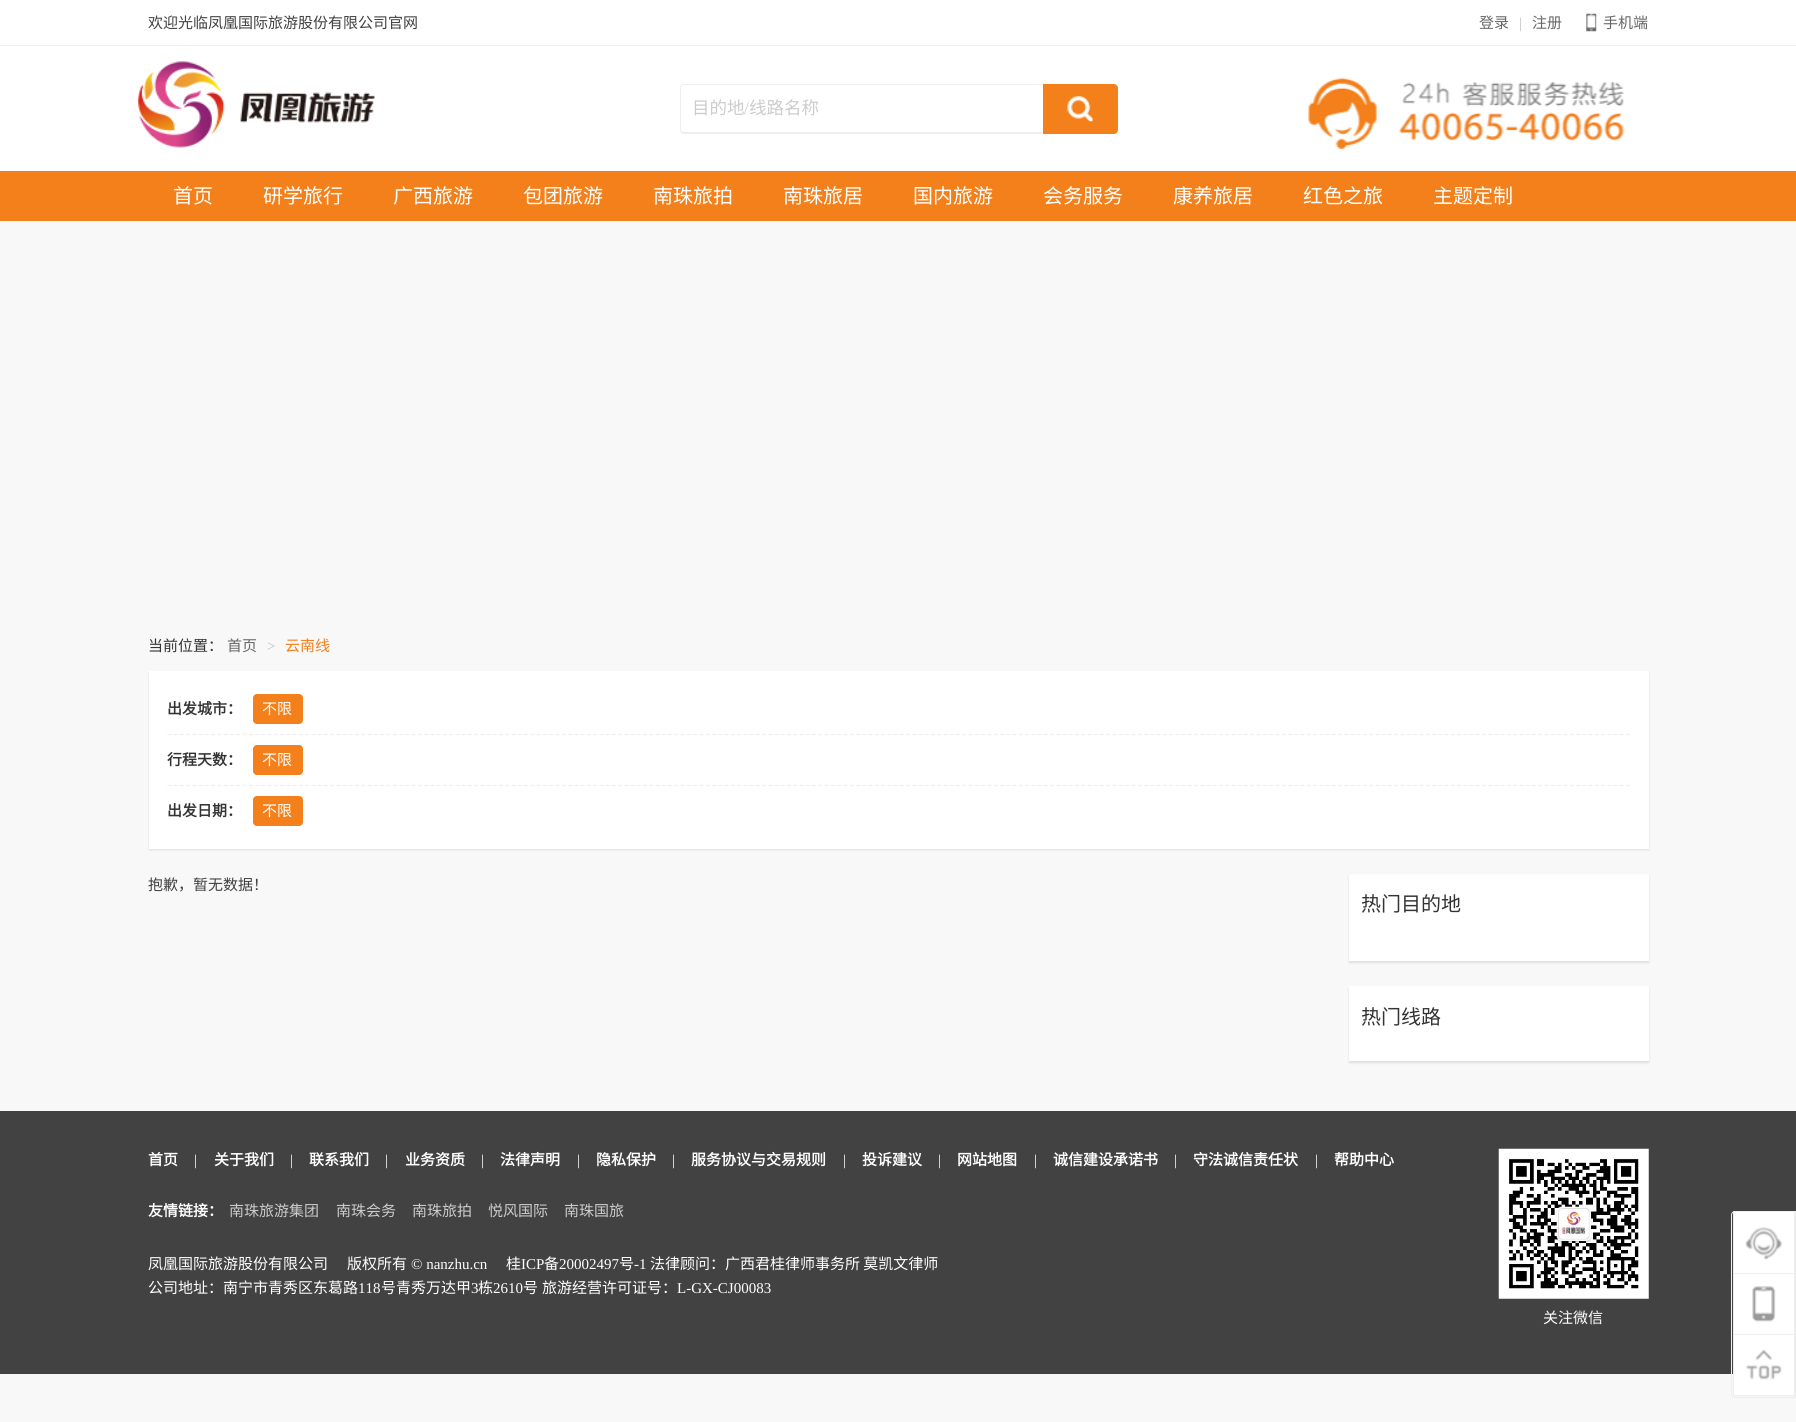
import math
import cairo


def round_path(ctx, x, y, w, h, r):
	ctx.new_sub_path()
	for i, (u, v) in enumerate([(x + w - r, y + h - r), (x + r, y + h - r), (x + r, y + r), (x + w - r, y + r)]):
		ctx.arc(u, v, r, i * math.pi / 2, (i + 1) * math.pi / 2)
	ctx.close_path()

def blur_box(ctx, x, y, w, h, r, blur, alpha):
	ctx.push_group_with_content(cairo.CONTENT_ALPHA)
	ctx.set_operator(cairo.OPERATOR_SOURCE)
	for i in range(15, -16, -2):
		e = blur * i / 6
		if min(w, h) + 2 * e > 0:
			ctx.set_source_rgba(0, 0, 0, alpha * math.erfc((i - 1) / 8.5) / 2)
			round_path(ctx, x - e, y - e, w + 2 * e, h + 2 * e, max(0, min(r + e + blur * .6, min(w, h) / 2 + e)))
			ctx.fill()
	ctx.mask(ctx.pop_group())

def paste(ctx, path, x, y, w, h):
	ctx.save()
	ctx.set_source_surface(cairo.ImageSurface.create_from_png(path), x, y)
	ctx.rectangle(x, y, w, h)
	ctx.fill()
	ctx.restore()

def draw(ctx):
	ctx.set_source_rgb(0.969, 0.969, 0.969)
	ctx.paint()
	ctx.set_source_rgb(1, 1, 1)
	ctx.rectangle(0, 0, 1796, 171)
	ctx.fill()
	ctx.set_source_rgb(0.933, 0.933, 0.933)
	ctx.rectangle(0, 45, 1796, 1)
	ctx.fill()
	ctx.select_font_face('Noto Sans CJK SC')
	ctx.set_font_size(15)
	ctx.set_source_rgb(0.251, 0.251, 0.251)
	ctx.move_to(148, 28)
	ctx.show_text('欢迎光临凤凰国际旅游股份有限公司官网')
	ctx.set_source_rgb(0.4, 0.4, 0.4)
	ctx.move_to(1479, 28)
	ctx.show_text('登录')
	ctx.select_font_face('Liberation Serif')
	ctx.set_source_rgb(0.749, 0.749, 0.749)
	ctx.move_to(1519, 28)
	ctx.show_text('|')
	ctx.select_font_face('Noto Sans CJK SC')
	ctx.set_source_rgb(0.4, 0.4, 0.4)
	ctx.move_to(1532, 28)
	ctx.show_text('注册')
	paste(ctx, 'media/1.png', 1586, 13, 11, 19)
	ctx.move_to(1603, 28)
	ctx.show_text('手机端')
	paste(ctx, 'media/2.png', 138, 61, 1487, 88)
	ctx.set_source_rgb(0.933, 0.933, 0.933)
	ctx.set_fill_rule(cairo.FILL_RULE_EVEN_ODD)
	ctx.new_path()
	ctx.move_to(684, 84)
	ctx.line_to(1042, 84)
	ctx.line_to(1042, 134)
	ctx.line_to(684, 134)
	ctx.curve_to(682, 134, 680, 132, 680, 130)
	ctx.line_to(680, 88)
	ctx.curve_to(680, 85, 682, 84, 684, 84)
	ctx.close_path()
	ctx.move_to(684, 85)
	ctx.line_to(1042, 85)
	ctx.line_to(1042, 132)
	ctx.line_to(684, 132)
	ctx.curve_to(682, 132, 681, 131, 681, 130)
	ctx.line_to(681, 88)
	ctx.curve_to(681, 86, 682, 85, 684, 85)
	ctx.close_path()
	ctx.fill()
	ctx.set_font_size(17.5)
	ctx.set_source_rgb(0.8, 0.8, 0.8)
	ctx.move_to(692, 114)
	ctx.show_text('目的地')
	ctx.select_font_face('Liberation Serif')
	ctx.move_to(744, 114)
	ctx.show_text('/')
	ctx.select_font_face('Noto Sans CJK SC')
	ctx.move_to(749, 114)
	ctx.show_text('线路名称')
	ctx.set_source_rgb(0.957, 0.502, 0.106)
	ctx.new_path()
	ctx.move_to(1043, 84)
	ctx.line_to(1114, 84)
	ctx.curve_to(1116, 84, 1118, 86, 1118, 88)
	ctx.line_to(1118, 130)
	ctx.curve_to(1118, 132, 1116, 134, 1114, 134)
	ctx.line_to(1043, 134)
	ctx.close_path()
	ctx.fill()
	paste(ctx, 'media/3.png', 1067, 96, 26, 26)
	ctx.rectangle(0, 171, 1796, 50)
	ctx.fill()
	ctx.set_font_size(20)
	ctx.set_source_rgb(1, 1, 1)
	for x, y, s in [
		(173, 203, '首页'),
		(263, 203, '研学旅行'),
		(393, 203, '广西旅游'),
		(523, 203, '包团旅游'),
		(653, 203, '南珠旅拍'),
		(783, 203, '南珠旅居'),
		(913, 203, '国内旅游'),
		(1043, 203, '会务服务'),
		(1173, 203, '康养旅居'),
		(1303, 203, '红色之旅'),
		(1433, 203, '主题定制'),
	]:
		ctx.move_to(x, y)
		ctx.show_text(s)
	ctx.set_font_size(15)
	ctx.set_source_rgb(0.2, 0.2, 0.2)
	ctx.move_to(148, 651)
	ctx.show_text('当前位置：')
	ctx.set_source_rgb(0.4, 0.4, 0.4)
	ctx.move_to(227, 651)
	ctx.show_text('首页')
	ctx.select_font_face('Liberation Serif')
	ctx.set_source_rgb(0.749, 0.749, 0.749)
	ctx.move_to(267, 651)
	ctx.show_text('>')
	ctx.select_font_face('Noto Sans CJK SC')
	ctx.set_source_rgb(0.957, 0.502, 0.106)
	ctx.move_to(285, 651)
	ctx.show_text('云南线')
	ctx.set_source_rgb(0, 0, 0)
	blur_box(ctx, 149, 673, 1500, 177, 0, 1, 0.1)
	ctx.set_source_rgb(1, 1, 1)
	ctx.rectangle(149, 671, 1500, 178)
	ctx.fill()
	ctx.new_path()
	ctx.move_to(167.5, 734.5)
	ctx.line_to(1630, 734.5)
	ctx.set_source_rgb(0.933, 0.933, 0.933)
	ctx.set_line_width(1.2)
	ctx.set_dash([3.75, 2.51])
	ctx.stroke()
	ctx.select_font_face('Noto Sans CJK SC', cairo.FONT_SLANT_NORMAL, cairo.FONT_WEIGHT_BOLD)
	ctx.set_source_rgb(0.2, 0.2, 0.2)
	ctx.move_to(167, 714)
	ctx.show_text('出发城市：')
	ctx.set_source_rgb(0.957, 0.502, 0.106)
	round_path(ctx, 253, 694, 50, 30, 4)
	ctx.fill()
	ctx.select_font_face('Noto Sans CJK SC')
	ctx.set_source_rgb(1, 1, 1)
	ctx.move_to(262, 714)
	ctx.show_text('不限')
	ctx.new_path()
	ctx.move_to(167.5, 785.5)
	ctx.line_to(1630, 785.5)
	ctx.set_source_rgb(0.933, 0.933, 0.933)
	ctx.stroke()
	ctx.select_font_face('Noto Sans CJK SC', cairo.FONT_SLANT_NORMAL, cairo.FONT_WEIGHT_BOLD)
	ctx.set_source_rgb(0.2, 0.2, 0.2)
	ctx.move_to(167, 765)
	ctx.show_text('行程天数：')
	ctx.set_source_rgb(0.957, 0.502, 0.106)
	round_path(ctx, 253, 745, 50, 30, 4)
	ctx.fill()
	ctx.select_font_face('Noto Sans CJK SC')
	ctx.set_source_rgb(1, 1, 1)
	ctx.move_to(262, 765)
	ctx.show_text('不限')
	ctx.select_font_face('Noto Sans CJK SC', cairo.FONT_SLANT_NORMAL, cairo.FONT_WEIGHT_BOLD)
	ctx.set_source_rgb(0.2, 0.2, 0.2)
	ctx.move_to(167, 816)
	ctx.show_text('出发日期：')
	ctx.set_source_rgb(0.957, 0.502, 0.106)
	round_path(ctx, 253, 796, 50, 30, 4)
	ctx.fill()
	ctx.select_font_face('Noto Sans CJK SC')
	ctx.set_source_rgb(1, 1, 1)
	ctx.move_to(262, 816)
	ctx.show_text('不限')
	ctx.set_source_rgb(0.251, 0.251, 0.251)
	ctx.move_to(148, 890)
	ctx.show_text('抱歉，暂无数据！')
	ctx.set_source_rgb(0, 0, 0)
	blur_box(ctx, 1349, 875, 300, 88, 0, 1, 0.1)
	ctx.set_source_rgb(1, 1, 1)
	ctx.rectangle(1349, 874, 300, 87)
	ctx.fill()
	ctx.set_font_size(20)
	ctx.set_source_rgb(0.2, 0.2, 0.2)
	ctx.move_to(1361, 911)
	ctx.show_text('热门目的地')
	ctx.set_source_rgb(0, 0, 0)
	blur_box(ctx, 1349, 988, 300, 75, 0, 1, 0.1)
	ctx.set_source_rgb(1, 1, 1)
	ctx.rectangle(1349, 986, 300, 75)
	ctx.fill()
	ctx.set_source_rgb(0.2, 0.2, 0.2)
	ctx.move_to(1361, 1024)
	ctx.show_text('热门线路')
	ctx.set_source_rgb(0.259, 0.259, 0.259)
	ctx.rectangle(0, 1111, 1796, 263)
	ctx.fill()
	ctx.select_font_face('Noto Sans CJK SC', cairo.FONT_SLANT_NORMAL, cairo.FONT_WEIGHT_BOLD)
	ctx.set_font_size(15)
	ctx.set_source_rgb(1, 1, 1)
	ctx.move_to(148, 1165)
	ctx.show_text('首页')
	ctx.select_font_face('Liberation Serif')
	ctx.move_to(194, 1165)
	ctx.show_text('|')
	ctx.select_font_face('Noto Sans CJK SC', cairo.FONT_SLANT_NORMAL, cairo.FONT_WEIGHT_BOLD)
	ctx.move_to(214, 1165)
	ctx.show_text('关于我们')
	ctx.select_font_face('Liberation Serif')
	ctx.move_to(290, 1165)
	ctx.show_text('|')
	ctx.select_font_face('Noto Sans CJK SC', cairo.FONT_SLANT_NORMAL, cairo.FONT_WEIGHT_BOLD)
	ctx.move_to(309, 1165)
	ctx.show_text('联系我们')
	ctx.select_font_face('Liberation Serif')
	ctx.move_to(385, 1165)
	ctx.show_text('|')
	ctx.select_font_face('Noto Sans CJK SC', cairo.FONT_SLANT_NORMAL, cairo.FONT_WEIGHT_BOLD)
	ctx.move_to(405, 1165)
	ctx.show_text('业务资质')
	ctx.select_font_face('Liberation Serif')
	ctx.move_to(481, 1165)
	ctx.show_text('|')
	ctx.select_font_face('Noto Sans CJK SC', cairo.FONT_SLANT_NORMAL, cairo.FONT_WEIGHT_BOLD)
	ctx.move_to(500, 1165)
	ctx.show_text('法律声明')
	ctx.select_font_face('Liberation Serif')
	ctx.move_to(577, 1165)
	ctx.show_text('|')
	ctx.select_font_face('Noto Sans CJK SC', cairo.FONT_SLANT_NORMAL, cairo.FONT_WEIGHT_BOLD)
	ctx.move_to(596, 1165)
	ctx.show_text('隐私保护')
	ctx.select_font_face('Liberation Serif')
	ctx.move_to(672, 1165)
	ctx.show_text('|')
	ctx.select_font_face('Noto Sans CJK SC', cairo.FONT_SLANT_NORMAL, cairo.FONT_WEIGHT_BOLD)
	ctx.move_to(691, 1165)
	ctx.show_text('服务协议与交易规则')
	ctx.select_font_face('Liberation Serif')
	ctx.move_to(843, 1165)
	ctx.show_text('|')
	ctx.select_font_face('Noto Sans CJK SC', cairo.FONT_SLANT_NORMAL, cairo.FONT_WEIGHT_BOLD)
	ctx.move_to(862, 1165)
	ctx.show_text('投诉建议')
	ctx.select_font_face('Liberation Serif')
	ctx.move_to(938, 1165)
	ctx.show_text('|')
	ctx.select_font_face('Noto Sans CJK SC', cairo.FONT_SLANT_NORMAL, cairo.FONT_WEIGHT_BOLD)
	ctx.move_to(957, 1165)
	ctx.show_text('网站地图')
	ctx.select_font_face('Liberation Serif')
	ctx.move_to(1034, 1165)
	ctx.show_text('|')
	ctx.select_font_face('Noto Sans CJK SC', cairo.FONT_SLANT_NORMAL, cairo.FONT_WEIGHT_BOLD)
	ctx.move_to(1053, 1165)
	ctx.show_text('诚信建设承诺书')
	ctx.select_font_face('Liberation Serif')
	ctx.move_to(1174, 1165)
	ctx.show_text('|')
	ctx.select_font_face('Noto Sans CJK SC', cairo.FONT_SLANT_NORMAL, cairo.FONT_WEIGHT_BOLD)
	ctx.move_to(1193, 1165)
	ctx.show_text('守法诚信责任状')
	ctx.select_font_face('Liberation Serif')
	ctx.move_to(1315, 1165)
	ctx.show_text('|')
	ctx.select_font_face('Noto Sans CJK SC', cairo.FONT_SLANT_NORMAL, cairo.FONT_WEIGHT_BOLD)
	ctx.move_to(1334, 1165)
	ctx.show_text('帮助中心')
	ctx.move_to(148, 1216)
	ctx.show_text('友情链接：')
	ctx.select_font_face('Noto Sans CJK SC')
	ctx.set_source_rgb(0.8, 0.8, 0.8)
	for x, y, s in [
		(229, 1216, '南珠旅游集团'),
		(336, 1216, '南珠会务'),
		(412, 1216, '南珠旅拍'),
		(488, 1216, '悦风国际'),
		(564, 1216, '南珠国旅'),
	]:
		ctx.move_to(x, y)
		ctx.show_text(s)
	ctx.set_source_rgb(1, 1, 1)
	ctx.move_to(148, 1269)
	ctx.show_text('凤凰国际旅游股份有限公司')
	ctx.move_to(347, 1269)
	ctx.show_text('版权所有')
	ctx.select_font_face('Liberation Serif')
	ctx.move_to(411, 1269)
	ctx.show_text('© nanzhu.cn')
	ctx.select_font_face('Noto Sans CJK SC')
	ctx.move_to(506, 1269)
	ctx.show_text('桂')
	ctx.select_font_face('Liberation Serif')
	ctx.move_to(521, 1269)
	ctx.show_text('ICP')
	ctx.select_font_face('Noto Sans CJK SC')
	ctx.move_to(544, 1269)
	ctx.show_text('备')
	ctx.select_font_face('Liberation Serif')
	ctx.move_to(559, 1269)
	ctx.show_text('20002497')
	ctx.select_font_face('Noto Sans CJK SC')
	ctx.move_to(619, 1269)
	ctx.show_text('号')
	ctx.select_font_face('Liberation Serif')
	ctx.move_to(634, 1269)
	ctx.show_text('-1')
	ctx.select_font_face('Noto Sans CJK SC')
	ctx.move_to(650, 1269)
	ctx.show_text('法律顾问：广西君桂律师事务所 莫凯文律师')
	ctx.move_to(148, 1293)
	ctx.show_text('公司地址：南宁市青秀区东葛路')
	ctx.select_font_face('Liberation Serif')
	ctx.move_to(358, 1293)
	ctx.show_text('118')
	ctx.select_font_face('Noto Sans CJK SC')
	ctx.move_to(381, 1293)
	ctx.show_text('号青秀万达甲')
	ctx.select_font_face('Liberation Serif')
	ctx.move_to(471, 1293)
	ctx.show_text('3')
	ctx.select_font_face('Noto Sans CJK SC')
	ctx.move_to(478, 1293)
	ctx.show_text('栋')
	ctx.select_font_face('Liberation Serif')
	ctx.move_to(493, 1293)
	ctx.show_text('2610')
	ctx.select_font_face('Noto Sans CJK SC')
	ctx.move_to(523, 1293)
	ctx.show_text('号')
	ctx.move_to(542, 1293)
	ctx.show_text('旅游经营许可证号：')
	ctx.select_font_face('Liberation Serif')
	ctx.move_to(677, 1293)
	ctx.show_text('L-GX-CJ00083')
	paste(ctx, 'media/4.png', 1498, 1148, 151, 151)
	ctx.select_font_face('Noto Sans CJK SC')
	ctx.move_to(1543, 1323)
	ctx.show_text('关注微信')
	ctx.new_path()
	ctx.move_to(1735, 1211.5)
	ctx.line_to(1795.5, 1211.5)
	ctx.line_to(1795.5, 1397.5)
	ctx.line_to(1735, 1397.5)
	ctx.curve_to(1733, 1397.5, 1731.5, 1396, 1731.5, 1394)
	ctx.line_to(1731.5, 1215)
	ctx.curve_to(1731.5, 1213, 1733, 1211.5, 1735, 1211.5)
	ctx.close_path()
	ctx.set_source_rgb(0.933, 0.933, 0.933)
	ctx.set_line_width(1)
	ctx.set_dash([])
	ctx.stroke()
	ctx.set_source_rgb(1, 1, 1)
	ctx.rectangle(1733.5, 1211.5, 61, 62)
	ctx.fill_preserve()
	ctx.set_source_rgb(0.933, 0.933, 0.933)
	ctx.stroke()
	paste(ctx, 'media/5.png', 1745, 1227, 37, 33)
	ctx.set_source_rgb(1, 1, 1)
	ctx.rectangle(1733.5, 1273.5, 61, 61)
	ctx.fill_preserve()
	ctx.set_source_rgb(0.933, 0.933, 0.933)
	ctx.stroke()
	paste(ctx, 'media/6.png', 1752, 1286, 24, 36)
	ctx.set_source_rgb(1, 1, 1)
	ctx.rectangle(1733.5, 1334.5, 61, 61)
	ctx.fill_preserve()
	ctx.set_source_rgb(0.933, 0.933, 0.933)
	ctx.stroke()
	paste(ctx, 'media/7.png', 1746, 1349, 36, 31)


surface = cairo.ImageSurface(cairo.FORMAT_RGB24, 1796, 1422)
ctx = cairo.Context(surface)
options = cairo.FontOptions()
options.set_hint_metrics(cairo.HINT_METRICS_OFF)
options.set_hint_style(cairo.HINT_STYLE_NONE)
ctx.set_font_options(options)
ctx.set_miter_limit(4)
draw(ctx)
surface.write_to_png('image.png')
